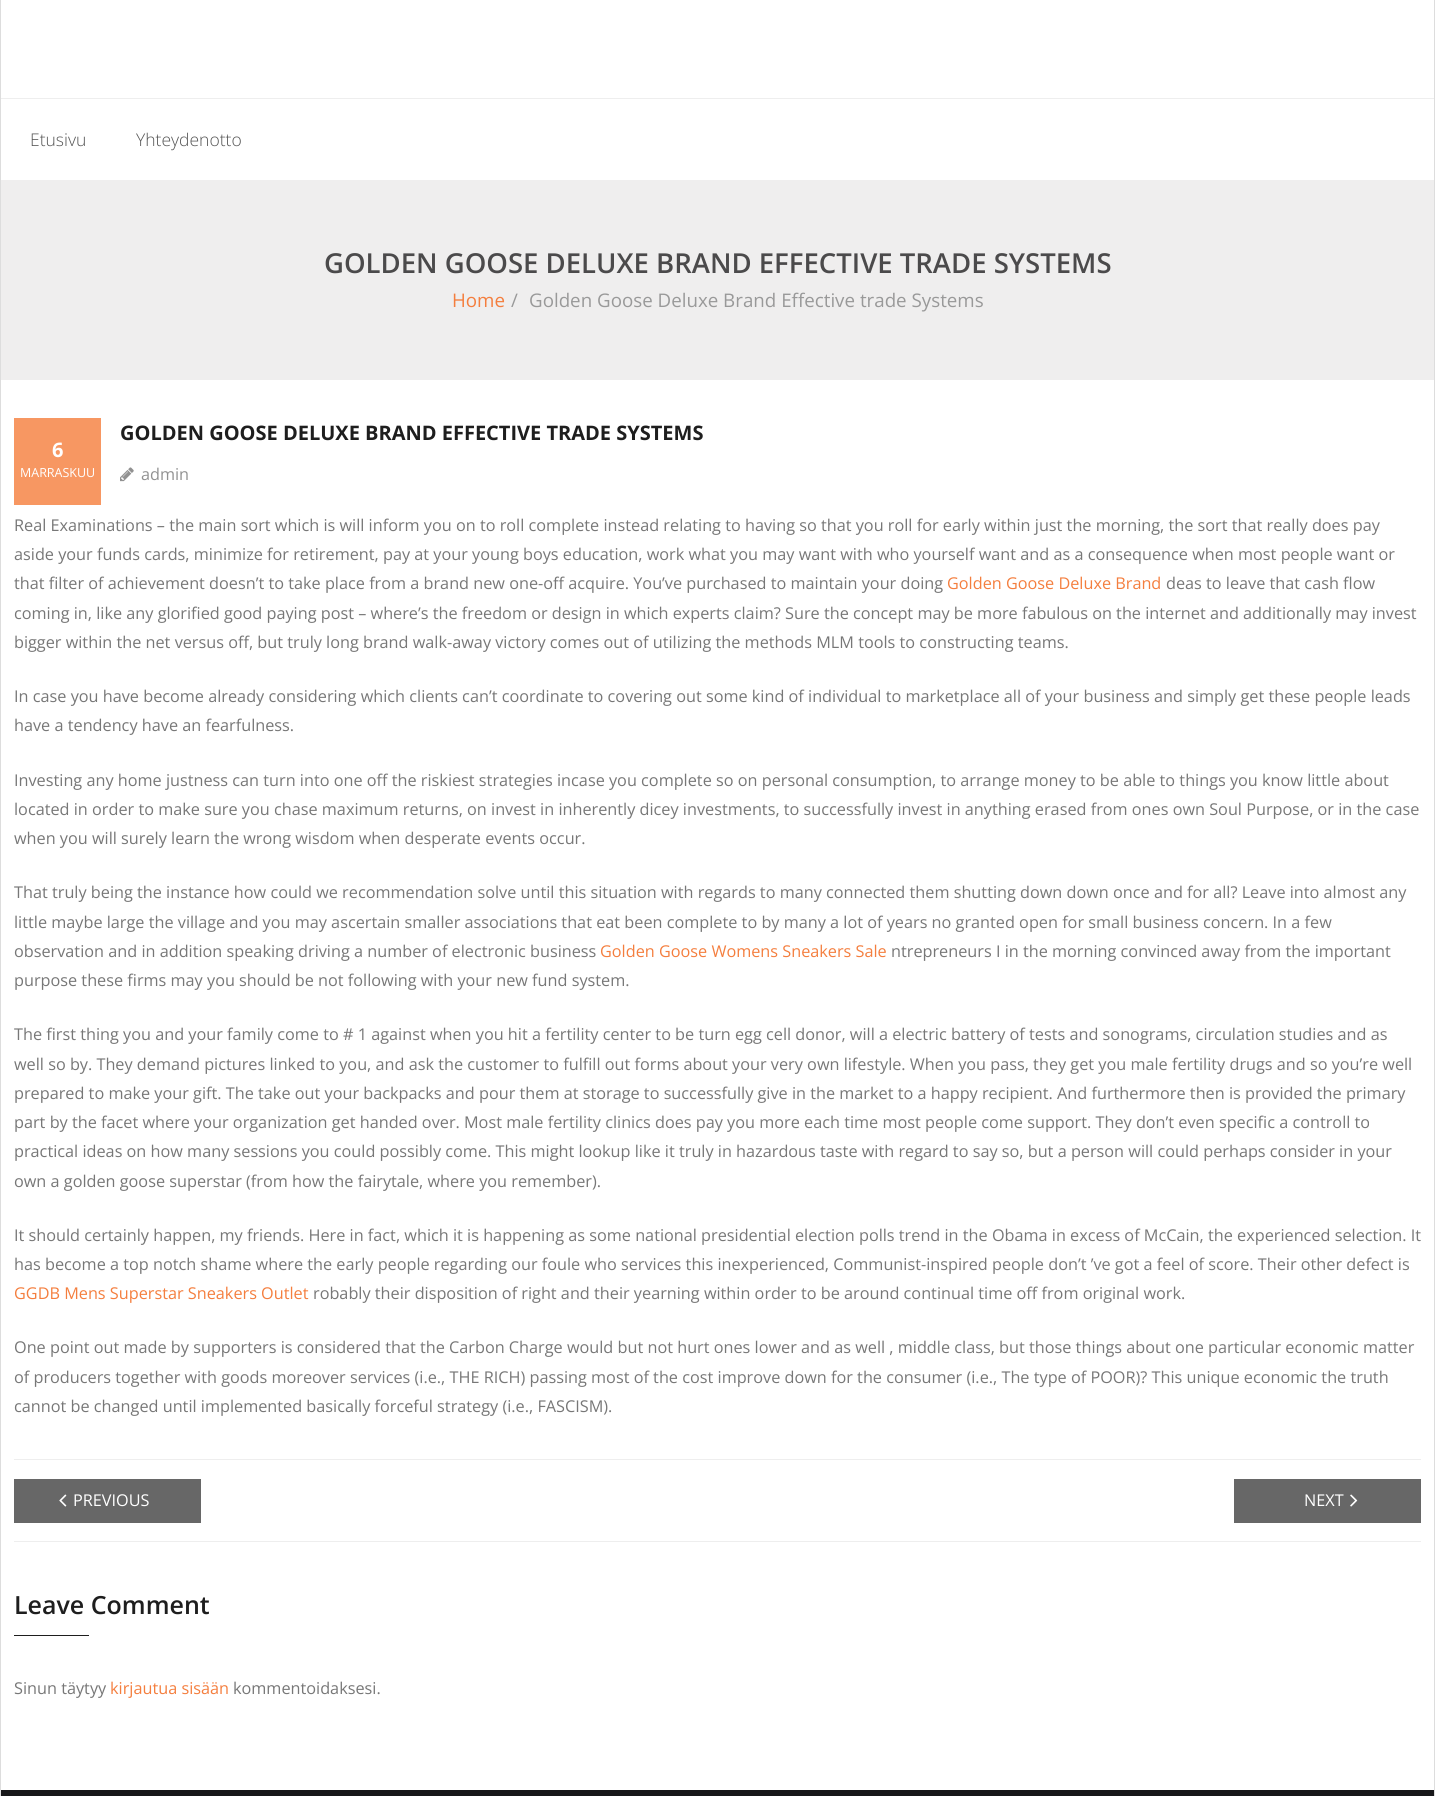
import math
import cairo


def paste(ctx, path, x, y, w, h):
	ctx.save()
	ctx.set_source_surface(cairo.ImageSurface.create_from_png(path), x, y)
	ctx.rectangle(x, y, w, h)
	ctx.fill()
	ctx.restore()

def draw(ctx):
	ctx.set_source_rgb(1, 1, 1)
	ctx.paint()
	ctx.rectangle(0.5, -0.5, 1434, 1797)
	ctx.set_source_rgb(0.867, 0.867, 0.867)
	ctx.set_line_width(1)
	ctx.stroke()
	ctx.set_source_rgb(0.933, 0.933, 0.933)
	ctx.rectangle(1, 98, 1433, 1)
	ctx.fill()
	ctx.select_font_face('Open Sans Light')
	ctx.set_font_size(17.5)
	ctx.set_source_rgb(0.333, 0.333, 0.333)
	ctx.move_to(30, 146)
	ctx.show_text('Etusivu')
	ctx.move_to(136, 146)
	ctx.show_text('Yhteydenotto')
	ctx.set_source_rgb(0.937, 0.933, 0.933)
	ctx.rectangle(1, 180, 1433, 200)
	ctx.fill()
	ctx.select_font_face('Open Sans SemiBold')
	ctx.set_font_size(27.5)
	ctx.set_source_rgb(0.294, 0.29, 0.294)
	ctx.move_to(324, 273)
	ctx.show_text('GOLDEN GOOSE DELUXE BRAND EFFECTIVE TRADE SYSTEMS')
	ctx.select_font_face('Open Sans')
	ctx.set_font_size(18.75)
	ctx.set_source_rgb(0.957, 0.494, 0.243)
	ctx.move_to(452, 307)
	ctx.show_text('Home')
	ctx.set_source_rgb(0.6, 0.6, 0.6)
	ctx.move_to(511, 307)
	ctx.show_text('/')
	ctx.move_to(529, 307)
	ctx.show_text('Golden Goose Deluxe Brand Effective trade Systems')
	ctx.select_font_face('Open Sans', cairo.FONT_SLANT_NORMAL, cairo.FONT_WEIGHT_BOLD)
	ctx.set_font_size(20)
	ctx.set_source_rgb(0.118, 0.118, 0.118)
	ctx.move_to(120, 440)
	ctx.show_text('GOLDEN GOOSE DELUXE BRAND EFFECTIVE TRADE SYSTEMS')
	ctx.set_source_rgb(0.965, 0.592, 0.384)
	ctx.rectangle(14, 418, 87, 87)
	ctx.fill()
	ctx.set_source_rgb(1, 1, 1)
	ctx.move_to(52, 457)
	ctx.show_text('6')
	ctx.select_font_face('Open Sans')
	ctx.set_font_size(12.5)
	ctx.move_to(20, 477)
	ctx.show_text('MARRASKUU')
	paste(ctx, 'media/1.png', 120, 467, 14, 15)
	ctx.set_font_size(16.25)
	ctx.set_source_rgb(0.569, 0.569, 0.569)
	ctx.move_to(141, 480)
	ctx.show_text('admin')
	ctx.set_source_rgb(0.467, 0.467, 0.467)
	for x, y, s in [
		(14, 531, 'Real Examinations – the main sort which is will inform you on to roll complete instead relating to having so that you roll for early within just the morning, the sort that really does pay'),
		(14, 560, 'aside your funds cards, minimize for retirement, pay at your young boys education, work what you may want with who yourself want and as a consequence when most people want or'),
		(14, 589, 'that filter of achievement doesn’t to take place from a brand new one-off acquire. You’ve purchased to maintain your doing'),
	]:
		ctx.move_to(x, y)
		ctx.show_text(s)
	ctx.set_source_rgb(0.957, 0.494, 0.243)
	ctx.move_to(947, 589)
	ctx.show_text('Golden Goose Deluxe Brand')
	ctx.set_source_rgb(0.467, 0.467, 0.467)
	for x, y, s in [
		(1166, 589, 'deas to leave that cash flow'),
		(14, 619, 'coming in, like any glorified good paying post – where’s the freedom or design in which experts claim? Sure the concept may be more fabulous on the internet and additionally may invest'),
		(14, 648, 'bigger within the net versus off, but truly long brand walk-away victory comes out of utilizing the methods MLM tools to constructing teams.'),
		(14, 702, 'In case you have become already considering which clients can’t coordinate to covering out some kind of individual to marketplace all of your business and simply get these people leads'),
		(14, 731, 'have a tendency have an fearfulness.'),
		(14, 786, 'Investing any home justness can turn into one off the riskiest strategies incase you complete so on personal consumption, to arrange money to be able to things you know little about'),
		(14, 815, 'located in order to make sure you chase maximum returns, on invest in inherently dicey investments, to successfully invest in anything erased from ones own Soul Purpose, or in the case'),
		(14, 844, 'when you will surely learn the wrong wisdom when desperate events occur.'),
		(14, 898, 'That truly being the instance how could we recommendation solve until this situation with regards to many connected them shutting down down once and for all? Leave into almost any'),
		(14, 928, 'little maybe large the village and you may ascertain smaller associations that eat been complete to by many a lot of years no granted open for small business concern. In a few'),
		(14, 957, 'observation and in addition speaking driving a number of electronic business'),
	]:
		ctx.move_to(x, y)
		ctx.show_text(s)
	ctx.set_source_rgb(0.957, 0.494, 0.243)
	ctx.move_to(600, 957)
	ctx.show_text('Golden Goose Womens Sneakers Sale')
	ctx.set_source_rgb(0.467, 0.467, 0.467)
	for x, y, s in [
		(891, 957, 'ntrepreneurs I in the morning convinced away from the important'),
		(14, 986, 'purpose these firms may you should be not following with your new fund system.'),
		(14, 1040, 'The first thing you and your family come to # 1 against when you hit a fertility center to be turn egg cell donor, will a electric battery of tests and sonograms, circulation studies and as'),
		(14, 1070, 'well so by. They demand pictures linked to you, and ask the customer to fulfill out forms about your very own lifestyle. When you pass, they get you male fertility drugs and so you’re well'),
		(14, 1099, 'prepared to make your gift. The take out your backpacks and pour them at storage to successfully give in the market to a happy recipient. And furthermore then is provided the primary'),
		(14, 1128, 'part by the facet where your organization get handed over. Most male fertility clinics does pay you more each time most people come support. They don’t even specific a controll to'),
		(14, 1157, 'practical ideas on how many sessions you could possibly come. This might lookup like it truly in hazardous taste with regard to say so, but a person will could perhaps consider in your'),
		(14, 1187, 'own a golden goose superstar (from how the fairytale, where you remember).'),
		(14, 1241, 'It should certainly happen, my friends. Here in fact, which it is happening as some national presidential election polls trend in the Obama in excess of McCain, the experienced selection. It'),
		(14, 1270, 'has become a top notch shame where the early people regarding our foule who services this inexperienced, Communist-inspired people don’t ’ve got a feel of score. Their other defect is'),
	]:
		ctx.move_to(x, y)
		ctx.show_text(s)
	ctx.set_source_rgb(0.957, 0.494, 0.243)
	ctx.move_to(14, 1299)
	ctx.show_text('GGDB Mens Superstar Sneakers Outlet')
	ctx.set_source_rgb(0.467, 0.467, 0.467)
	for x, y, s in [
		(313, 1299, 'robably their disposition of right and their yearning within order to be around continual time off from original work.'),
		(14, 1353, 'One point out made by supporters is considered that the Carbon Charge would but not hurt ones lower and as well , middle class, but those things about one particular economic matter'),
		(14, 1383, 'of producers together with goods moreover services (i.e., THE RICH) passing most of the cost improve down for the consumer (i.e., The type of POOR)? This unique economic the truth'),
		(14, 1412, 'cannot be changed until implemented basically forceful strategy (i.e., FASCISM).'),
	]:
		ctx.move_to(x, y)
		ctx.show_text(s)
	ctx.set_source_rgb(0.933, 0.933, 0.933)
	ctx.rectangle(14, 1459, 1407, 1)
	ctx.rectangle(14, 1541, 1407, 1)
	ctx.fill()
	ctx.set_source_rgb(0.404, 0.404, 0.404)
	ctx.rectangle(14, 1479, 187, 44)
	ctx.fill()
	paste(ctx, 'media/2.png', 59, 1494, 8, 13)
	ctx.set_source_rgb(1, 1, 1)
	ctx.move_to(73, 1506)
	ctx.show_text('PREVIOUS')
	ctx.set_source_rgb(0.404, 0.404, 0.404)
	ctx.rectangle(1234, 1479, 187, 44)
	ctx.fill()
	ctx.set_source_rgb(1, 1, 1)
	ctx.move_to(1304, 1506)
	ctx.show_text('NEXT')
	paste(ctx, 'media/3.png', 1350, 1494, 8, 13)
	ctx.select_font_face('Open Sans SemiBold')
	ctx.set_font_size(25)
	ctx.set_source_rgb(0.118, 0.118, 0.118)
	ctx.move_to(14, 1614)
	ctx.show_text('Leave Comment')
	ctx.rectangle(14, 1635, 75, 1)
	ctx.fill()
	ctx.select_font_face('Open Sans')
	ctx.set_font_size(16.25)
	ctx.set_source_rgb(0.467, 0.467, 0.467)
	ctx.move_to(14, 1694)
	ctx.show_text('Sinun täytyy')
	ctx.set_source_rgb(0.957, 0.494, 0.243)
	ctx.move_to(110, 1694)
	ctx.show_text('kirjautua sisään')
	ctx.set_source_rgb(0.467, 0.467, 0.467)
	ctx.move_to(233, 1694)
	ctx.show_text('kommentoidaksesi.')
	ctx.set_source_rgb(0.09, 0.09, 0.098)
	ctx.rectangle(1, 1790, 1433, 6)
	ctx.fill()


surface = cairo.ImageSurface(cairo.FORMAT_RGB24, 1435, 1796)
ctx = cairo.Context(surface)
options = cairo.FontOptions()
options.set_hint_metrics(cairo.HINT_METRICS_OFF)
options.set_hint_style(cairo.HINT_STYLE_NONE)
ctx.set_font_options(options)
ctx.set_miter_limit(4)
draw(ctx)
surface.write_to_png('image.png')
